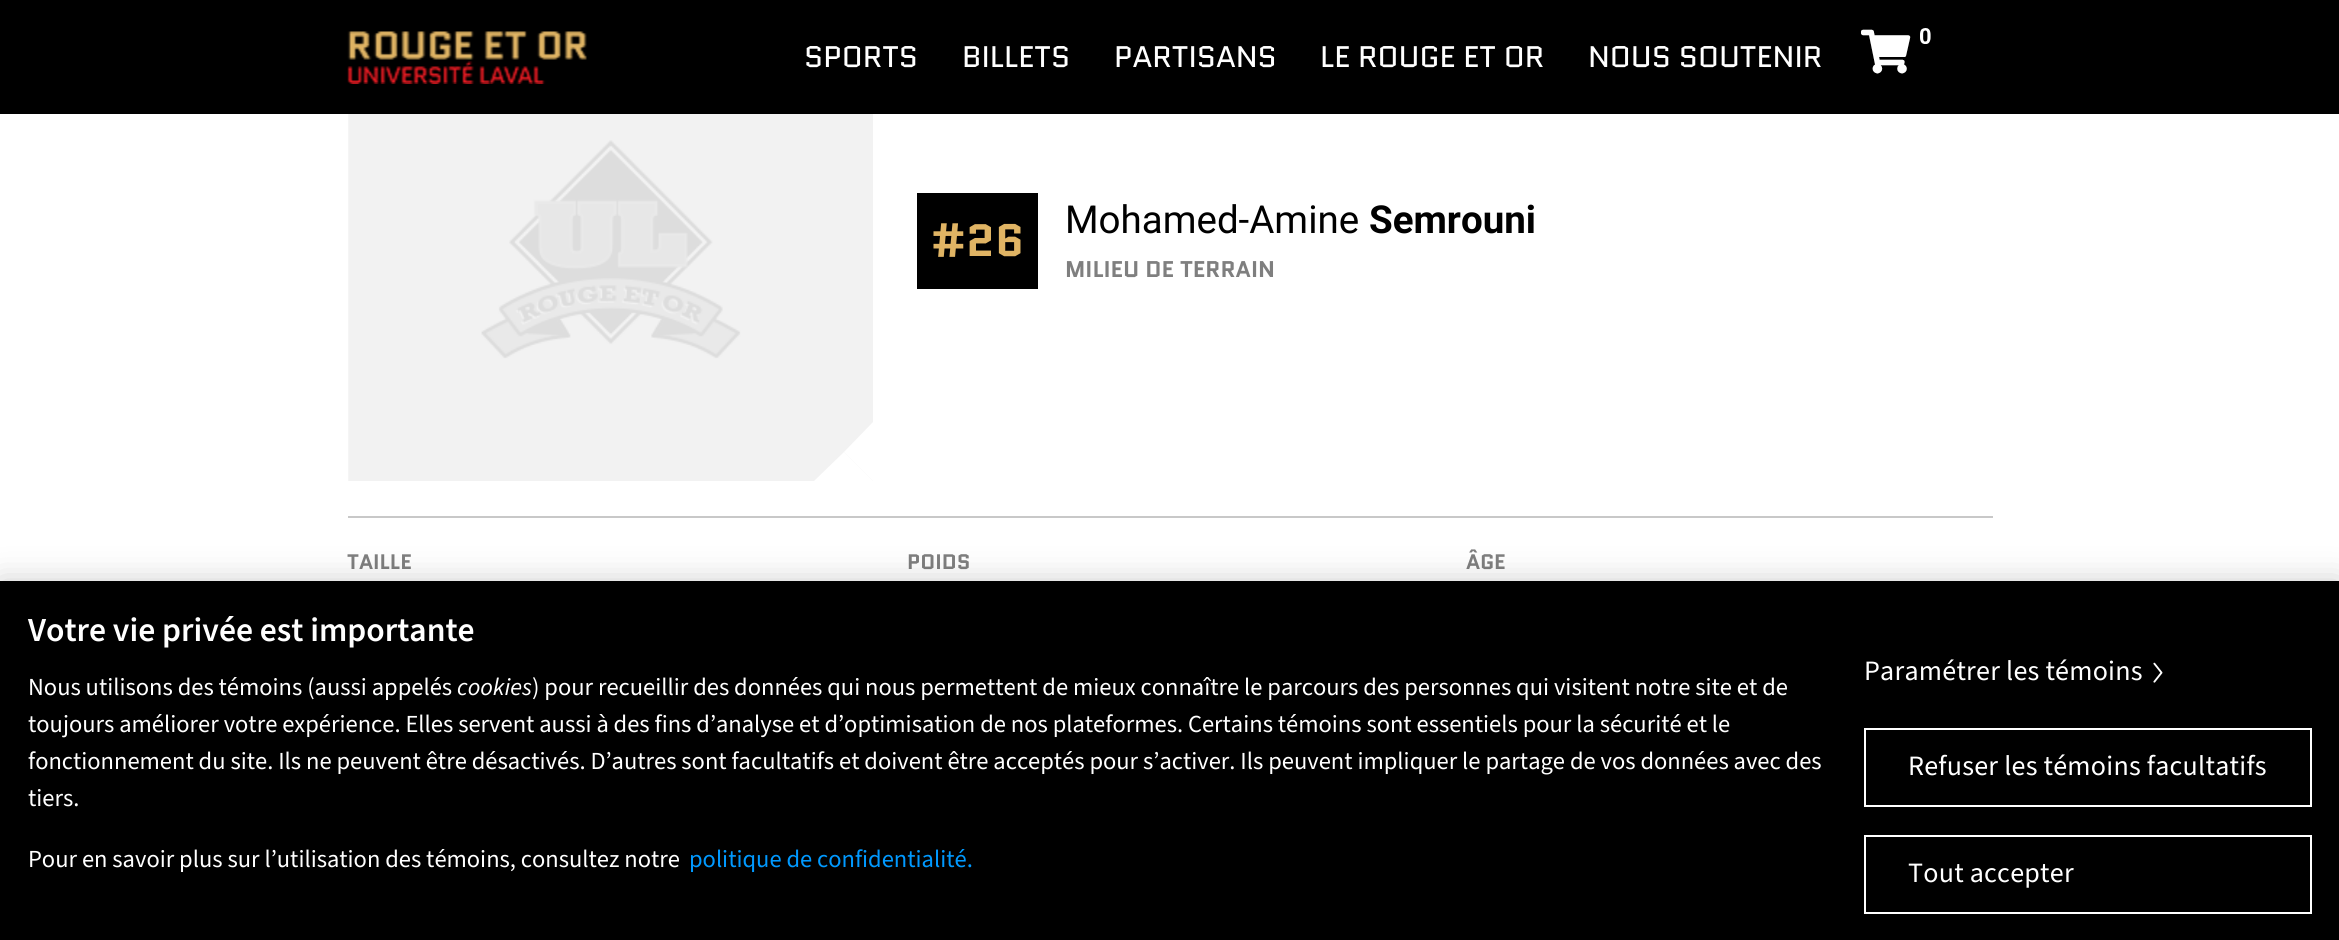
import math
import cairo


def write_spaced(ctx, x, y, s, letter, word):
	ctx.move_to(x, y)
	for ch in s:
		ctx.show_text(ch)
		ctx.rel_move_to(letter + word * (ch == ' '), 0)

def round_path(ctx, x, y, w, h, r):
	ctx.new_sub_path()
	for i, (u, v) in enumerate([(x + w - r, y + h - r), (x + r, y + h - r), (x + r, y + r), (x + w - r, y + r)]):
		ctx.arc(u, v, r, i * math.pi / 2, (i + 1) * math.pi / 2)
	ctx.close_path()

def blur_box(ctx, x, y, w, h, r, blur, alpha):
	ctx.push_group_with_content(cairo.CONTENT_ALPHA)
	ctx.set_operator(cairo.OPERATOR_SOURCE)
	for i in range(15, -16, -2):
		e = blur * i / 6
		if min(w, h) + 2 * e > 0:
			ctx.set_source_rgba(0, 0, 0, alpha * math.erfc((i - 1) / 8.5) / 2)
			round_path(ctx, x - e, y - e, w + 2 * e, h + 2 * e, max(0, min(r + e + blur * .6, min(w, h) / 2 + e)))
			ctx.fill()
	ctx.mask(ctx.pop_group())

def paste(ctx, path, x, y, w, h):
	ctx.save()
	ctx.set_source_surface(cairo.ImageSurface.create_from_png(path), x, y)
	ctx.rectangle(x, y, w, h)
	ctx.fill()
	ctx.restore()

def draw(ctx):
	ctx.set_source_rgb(1, 1, 1)
	ctx.paint()
	ctx.set_source_rgb(0, 0, 0)
	ctx.rectangle(0, 0, 2339, 114)
	ctx.fill()
	paste(ctx, 'media/1.png', 347, 31, 240, 53)
	ctx.select_font_face('Quantico')
	ctx.set_font_size(29.75)
	ctx.set_source_rgb(1, 1, 1)
	for x, y, s in [
		(804, 67, 'SPORTS'),
		(962, 67, 'BILLETS'),
		(1114, 67, 'PARTISANS'),
		(1320, 67, 'LE ROUGE ET OR'),
		(1588, 67, 'NOUS SOUTENIR'),
	]:
		ctx.move_to(x, y)
		ctx.show_text(s)
	paste(ctx, 'media/2.png', 1861, 28, 70, 46)
	paste(ctx, 'media/3.png', 348, 114, 525, 367)
	ctx.new_path()
	ctx.move_to(873, 422)
	ctx.line_to(873, 481)
	ctx.line_to(844, 452)
	ctx.close_path()
	ctx.fill()
	ctx.new_path()
	ctx.move_to(873, 481)
	ctx.line_to(814, 481)
	ctx.line_to(844, 452)
	ctx.close_path()
	ctx.fill()
	ctx.select_font_face('Roboto')
	ctx.set_font_size(38.5)
	ctx.set_source_rgb(0, 0, 0)
	ctx.move_to(1065, 233)
	ctx.show_text('Mohamed-Amine')
	ctx.select_font_face('Roboto', cairo.FONT_SLANT_NORMAL, cairo.FONT_WEIGHT_BOLD)
	ctx.move_to(1369, 233)
	ctx.show_text('Semrouni')
	ctx.rectangle(917, 193, 121, 96)
	ctx.fill()
	ctx.select_font_face('Quantico', cairo.FONT_SLANT_NORMAL, cairo.FONT_WEIGHT_BOLD)
	ctx.set_font_size(45.5)
	ctx.set_source_rgb(0.878, 0.706, 0.392)
	ctx.move_to(931, 256)
	ctx.show_text('#26')
	ctx.set_font_size(22.75)
	ctx.set_source_rgb(0.498, 0.498, 0.498)
	ctx.move_to(1065, 277)
	ctx.show_text('MILIEU DE TERRAIN')
	ctx.set_source_rgb(0.784, 0.784, 0.784)
	ctx.rectangle(348, 516, 1645, 2)
	ctx.fill()
	ctx.set_font_size(21)
	ctx.set_source_rgb(0.498, 0.498, 0.498)
	for x, y, s in [
		(347, 569, 'TAILLE'),
		(907, 569, 'POIDS'),
		(1466, 569, 'ÂGE'),
	]:
		ctx.move_to(x, y)
		ctx.show_text(s)
	ctx.set_source_rgb(0, 0, 0)
	blur_box(ctx, 0, 581, 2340, 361, 0, 16, 0.2)
	ctx.set_source_rgb(0, 0, 0)
	ctx.rectangle(0, 581, 2339, 359)
	ctx.fill()
	ctx.select_font_face('Source Sans 3 SemiBold')
	ctx.set_font_size(33.6)
	ctx.set_source_rgb(1, 1, 1)
	ctx.move_to(28, 641)
	ctx.show_text('Votre vie privée est importante')
	ctx.select_font_face('Source Sans 3')
	ctx.set_font_size(24.5)
	ctx.move_to(28, 695)
	ctx.show_text('Nous utilisons des témoins (aussi appelés')
	ctx.select_font_face('Source Sans 3', cairo.FONT_SLANT_ITALIC)
	ctx.move_to(457, 695)
	ctx.show_text('cookies')
	ctx.select_font_face('Source Sans 3')
	for x, y, s in [
		(532, 695, ') pour recueillir des données qui nous permettent de mieux connaître le parcours des personnes qui visitent notre site et de'),
		(28, 732, 'toujours améliorer votre expérience. Elles servent aussi à des fins d’analyse et d’optimisation de nos plateformes. Certains témoins sont essentiels pour la sécurité et le'),
		(28, 769, 'fonctionnement du site. Ils ne peuvent être désactivés. D’autres sont facultatifs et doivent être acceptés pour s’activer. Ils peuvent impliquer le partage de vos données avec des'),
		(28, 806, 'tiers.'),
		(28, 867, 'Pour en savoir plus sur l’utilisation des témoins, consultez notre'),
	]:
		ctx.move_to(x, y)
		ctx.show_text(s)
	ctx.set_source_rgb(0, 0.6, 1)
	ctx.move_to(689, 867)
	ctx.show_text('politique de confidentialité.')
	ctx.set_font_size(28)
	ctx.set_source_rgb(1, 1, 1)
	write_spaced(ctx, 1864, 680, 'Paramétrer les témoins', 0.25, 0)
	paste(ctx, 'media/4.png', 2153, 662, 10, 21)
	ctx.rectangle(1865, 729, 446, 77)
	ctx.stroke()
	write_spaced(ctx, 1908, 775, 'Refuser les témoins facultatifs', 0.25, 0)
	ctx.rectangle(1865, 836, 446, 77)
	ctx.stroke()
	write_spaced(ctx, 1908, 882, 'Tout accepter', 0.25, 0)


surface = cairo.ImageSurface(cairo.FORMAT_RGB24, 2339, 940)
ctx = cairo.Context(surface)
options = cairo.FontOptions()
options.set_hint_metrics(cairo.HINT_METRICS_OFF)
options.set_hint_style(cairo.HINT_STYLE_NONE)
ctx.set_font_options(options)
ctx.set_miter_limit(4)
draw(ctx)
surface.write_to_png('image.png')
